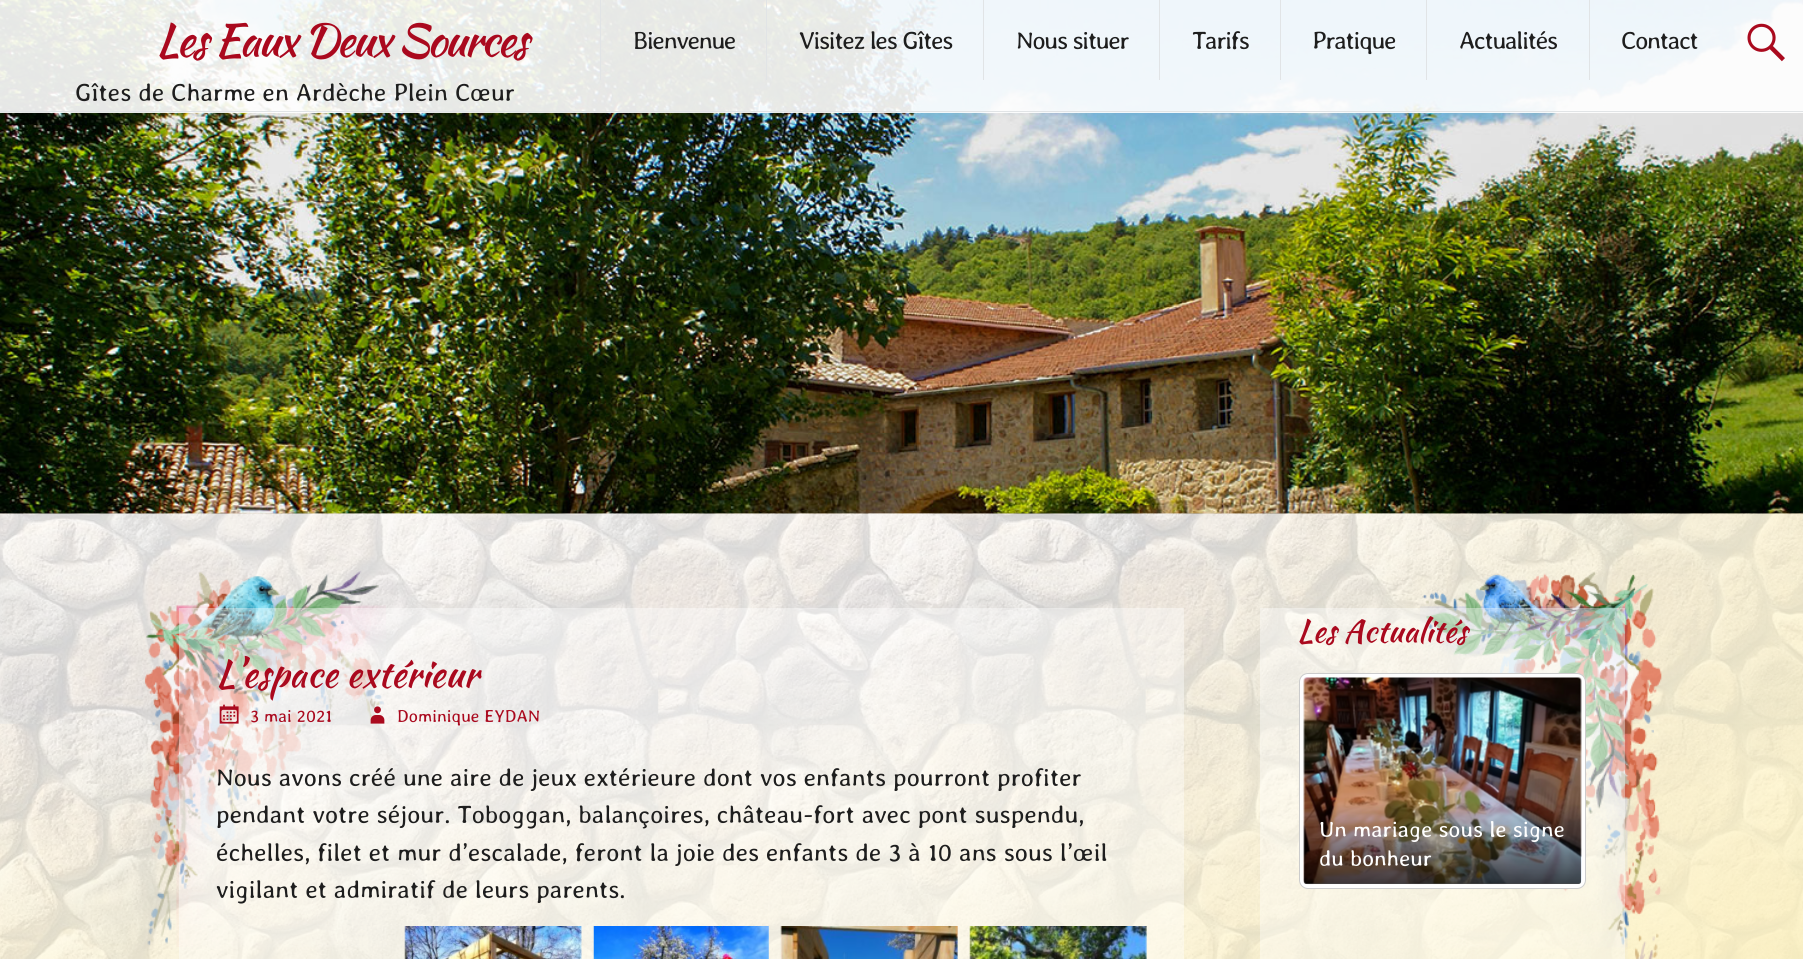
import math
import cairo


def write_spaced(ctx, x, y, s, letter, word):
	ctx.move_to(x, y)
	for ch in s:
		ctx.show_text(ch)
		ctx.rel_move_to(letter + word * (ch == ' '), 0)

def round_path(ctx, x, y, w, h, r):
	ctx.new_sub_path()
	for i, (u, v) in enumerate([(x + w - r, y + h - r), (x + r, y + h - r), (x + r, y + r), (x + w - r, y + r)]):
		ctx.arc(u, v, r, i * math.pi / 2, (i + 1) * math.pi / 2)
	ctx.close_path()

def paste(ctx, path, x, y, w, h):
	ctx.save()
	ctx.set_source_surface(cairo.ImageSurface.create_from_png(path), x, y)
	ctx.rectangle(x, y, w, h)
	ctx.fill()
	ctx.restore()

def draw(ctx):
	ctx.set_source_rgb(1, 1, 1)
	ctx.paint()
	paste(ctx, 'media/1.png', 0, 513, 1803, 1)
	paste(ctx, 'media/2.png', 0, 0, 1803, 514)
	ctx.set_source_rgba(1, 1, 1, 0.9)
	ctx.rectangle(0, 0, 1803, 113)
	ctx.fill()
	ctx.set_source_rgb(0.882, 0.894, 0.902)
	ctx.rectangle(0, 111, 1803, 1)
	ctx.fill()
	ctx.select_font_face('Kaushan Script')
	ctx.set_font_size(45)
	ctx.set_source_rgb(0.667, 0.039, 0.118)
	write_spaced(ctx, 156, 56, 'Les Eaux Deux Sources', -2.25, 0)
	ctx.select_font_face('Averia Libre Light')
	ctx.set_font_size(25)
	ctx.set_source_rgb(0.118, 0.118, 0.118)
	ctx.move_to(75, 101)
	ctx.show_text('Gîtes de Charme en Ardèche Plein Cœur')
	ctx.set_source_rgb(0.882, 0.894, 0.902)
	ctx.rectangle(600, 0, 1, 80)
	ctx.fill()
	ctx.set_source_rgb(0.118, 0.118, 0.118)
	write_spaced(ctx, 633, 49, 'Bienvenue', -1.25, 0)
	ctx.set_source_rgb(0.882, 0.894, 0.902)
	ctx.rectangle(766, 0, 1, 80)
	ctx.fill()
	ctx.set_source_rgb(0.118, 0.118, 0.118)
	write_spaced(ctx, 799, 49, 'Visitez les Gîtes', -1.25, 0)
	ctx.set_source_rgb(0.882, 0.894, 0.902)
	ctx.rectangle(983, 0, 1, 80)
	ctx.fill()
	ctx.set_source_rgb(0.118, 0.118, 0.118)
	write_spaced(ctx, 1016, 49, 'Nous situer', -1.25, 0)
	ctx.set_source_rgb(0.882, 0.894, 0.902)
	ctx.rectangle(1159, 0, 1, 80)
	ctx.fill()
	ctx.set_source_rgb(0.118, 0.118, 0.118)
	write_spaced(ctx, 1192, 49, 'Tarifs', -1.25, 0)
	ctx.set_source_rgb(0.882, 0.894, 0.902)
	ctx.rectangle(1280, 0, 1, 80)
	ctx.fill()
	ctx.set_source_rgb(0.118, 0.118, 0.118)
	write_spaced(ctx, 1312, 49, 'Pratique', -1.25, 0)
	ctx.set_source_rgb(0.882, 0.894, 0.902)
	ctx.rectangle(1426, 0, 1, 80)
	ctx.fill()
	ctx.set_source_rgb(0.118, 0.118, 0.118)
	write_spaced(ctx, 1459, 49, 'Actualités', -1.25, 0)
	ctx.set_source_rgb(0.882, 0.894, 0.902)
	ctx.rectangle(1589, 0, 1, 80)
	ctx.fill()
	ctx.set_source_rgb(0.118, 0.118, 0.118)
	write_spaced(ctx, 1621, 49, 'Contact', -1.25, 0)
	paste(ctx, 'media/3.png', 1747, 23, 38, 39)
	paste(ctx, 'media/4.png', 0, 513, 1803, 446)
	paste(ctx, 'media/5.png', 144, 570, 242, 377)
	ctx.set_source_rgba(1, 1, 1, 0.4)
	ctx.rectangle(179, 608, 1005, 351)
	ctx.fill()
	ctx.select_font_face('Kaushan Script')
	ctx.set_font_size(37.5)
	ctx.set_source_rgb(0.667, 0.039, 0.118)
	ctx.move_to(216, 687)
	ctx.show_text('L’espace extérieur')
	paste(ctx, 'media/6.png', 219, 704, 20, 20)
	ctx.select_font_face('Averia Libre Light')
	ctx.set_font_size(17.5)
	ctx.move_to(250, 722)
	ctx.show_text('3 mai 2021')
	paste(ctx, 'media/7.png', 370, 706, 15, 18)
	ctx.move_to(397, 722)
	ctx.show_text('Dominique EYDAN')
	ctx.set_font_size(25)
	ctx.set_source_rgb(0.118, 0.118, 0.118)
	for x, y, s in [
		(216, 786, 'Nous avons créé une aire de jeux extérieure dont vos enfants pourront profiter'),
		(216, 823, 'pendant votre séjour. Toboggan, balançoires, château-fort avec pont suspendu,'),
		(216, 861, 'échelles, filet et mur d’escalade, feront la joie des enfants de 3 à 10 ans sous l’œil'),
		(216, 898, 'vigilant et admiratif de leurs parents.'),
	]:
		ctx.move_to(x, y)
		ctx.show_text(s)
	paste(ctx, 'media/8.png', 404, 926, 178, 33)
	paste(ctx, 'media/9.png', 593, 926, 176, 33)
	paste(ctx, 'media/10.png', 780, 926, 178, 33)
	paste(ctx, 'media/11.png', 969, 926, 178, 33)
	paste(ctx, 'media/12.png', 1420, 571, 242, 388)
	ctx.set_source_rgba(1, 1, 1, 0.4)
	ctx.rectangle(1260, 608, 365, 320)
	ctx.fill()
	ctx.select_font_face('Kaushan Script')
	ctx.set_font_size(31.25)
	ctx.set_source_rgb(0.667, 0.039, 0.118)
	ctx.move_to(1297, 642)
	ctx.show_text('Les Actualités')
	ctx.set_source_rgb(1, 1, 1)
	round_path(ctx, 1299.5, 673.5, 286, 215, 8.5)
	ctx.fill_preserve()
	ctx.set_source_rgb(0.8, 0.8, 0.8)
	ctx.set_line_width(1)
	ctx.stroke()
	paste(ctx, 'media/13.png', 1303, 677, 279, 208)
	gradient = cairo.LinearGradient(1443, 884, 1443, 803)
	gradient.add_color_stop_rgba(0, 0, 0, 0, 0.7)
	gradient.add_color_stop_rgba(1, 0, 0, 0, 0)
	ctx.set_source(gradient)
	ctx.new_path()
	ctx.move_to(1304, 803)
	ctx.line_to(1581, 803)
	ctx.line_to(1581, 881.5)
	ctx.curve_to(1581, 883, 1580, 884, 1578.5, 884)
	ctx.line_to(1306.5, 884)
	ctx.curve_to(1305, 884, 1304, 883, 1304, 881.5)
	ctx.close_path()
	ctx.fill()
	ctx.select_font_face('Averia Libre Light')
	ctx.set_font_size(22.5)
	ctx.set_source_rgb(1, 1, 1)
	ctx.move_to(1319, 837)
	ctx.show_text('Un mariage sous le signe')
	ctx.move_to(1319, 866)
	ctx.show_text('du bonheur')
	ctx.set_source_rgba(1, 1, 1, 0.4)
	ctx.rectangle(1260, 928, 365, 31)
	ctx.fill()


surface = cairo.ImageSurface(cairo.FORMAT_RGB24, 1803, 959)
ctx = cairo.Context(surface)
options = cairo.FontOptions()
options.set_hint_metrics(cairo.HINT_METRICS_OFF)
options.set_hint_style(cairo.HINT_STYLE_NONE)
ctx.set_font_options(options)
ctx.set_miter_limit(4)
draw(ctx)
surface.write_to_png('image.png')
